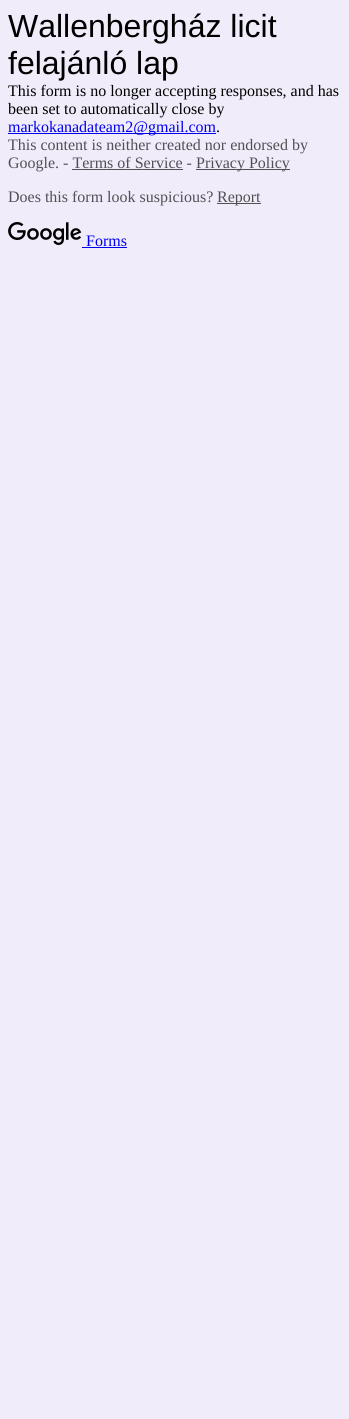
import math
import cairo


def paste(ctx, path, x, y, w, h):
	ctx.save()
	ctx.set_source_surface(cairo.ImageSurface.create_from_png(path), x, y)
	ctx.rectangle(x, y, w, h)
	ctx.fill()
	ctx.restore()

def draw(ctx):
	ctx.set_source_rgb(0.941, 0.922, 0.973)
	ctx.paint()
	ctx.select_font_face('Liberation Sans')
	ctx.set_font_size(32)
	ctx.set_source_rgb(0, 0, 0)
	ctx.move_to(8, 37)
	ctx.show_text('Wallenbergház licit')
	ctx.move_to(8, 74)
	ctx.show_text('felajánló lap')
	ctx.select_font_face('Liberation Serif')
	ctx.set_font_size(16)
	ctx.move_to(8, 96)
	ctx.show_text('This form is no longer accepting responses, and has')
	ctx.move_to(8, 114)
	ctx.show_text('been set to automatically close by')
	ctx.set_source_rgb(0, 0, 0.933)
	ctx.rectangle(8, 133, 208, 1)
	ctx.fill()
	ctx.move_to(8, 132)
	ctx.show_text('markokanadateam2@gmail.com')
	ctx.set_source_rgb(0, 0, 0)
	ctx.move_to(216, 132)
	ctx.show_text('.')
	ctx.set_source_rgb(0.322, 0.314, 0.329)
	ctx.move_to(8, 150)
	ctx.show_text('This content is neither created nor endorsed by')
	ctx.move_to(8, 168)
	ctx.show_text('Google. - Terms of Service -')
	ctx.rectangle(196, 169, 94, 1)
	ctx.fill()
	ctx.move_to(196, 168)
	ctx.show_text('Privacy Policy')
	ctx.rectangle(72, 169, 111, 1)
	ctx.fill()
	ctx.move_to(8, 202)
	ctx.show_text('Does this form look suspicious?')
	ctx.rectangle(217, 203, 44, 1)
	ctx.fill()
	ctx.move_to(217, 202)
	ctx.show_text('Report')
	paste(ctx, 'media/1.png', 8, 222, 74, 23)
	ctx.set_source_rgb(0, 0, 0.933)
	ctx.move_to(86, 246)
	ctx.show_text('Forms')
	ctx.rectangle(82, 247, 45, 1)
	ctx.fill()


surface = cairo.ImageSurface(cairo.FORMAT_RGB24, 349, 1419)
ctx = cairo.Context(surface)
options = cairo.FontOptions()
options.set_hint_metrics(cairo.HINT_METRICS_OFF)
options.set_hint_style(cairo.HINT_STYLE_NONE)
ctx.set_font_options(options)
ctx.set_miter_limit(4)
draw(ctx)
surface.write_to_png('image.png')
